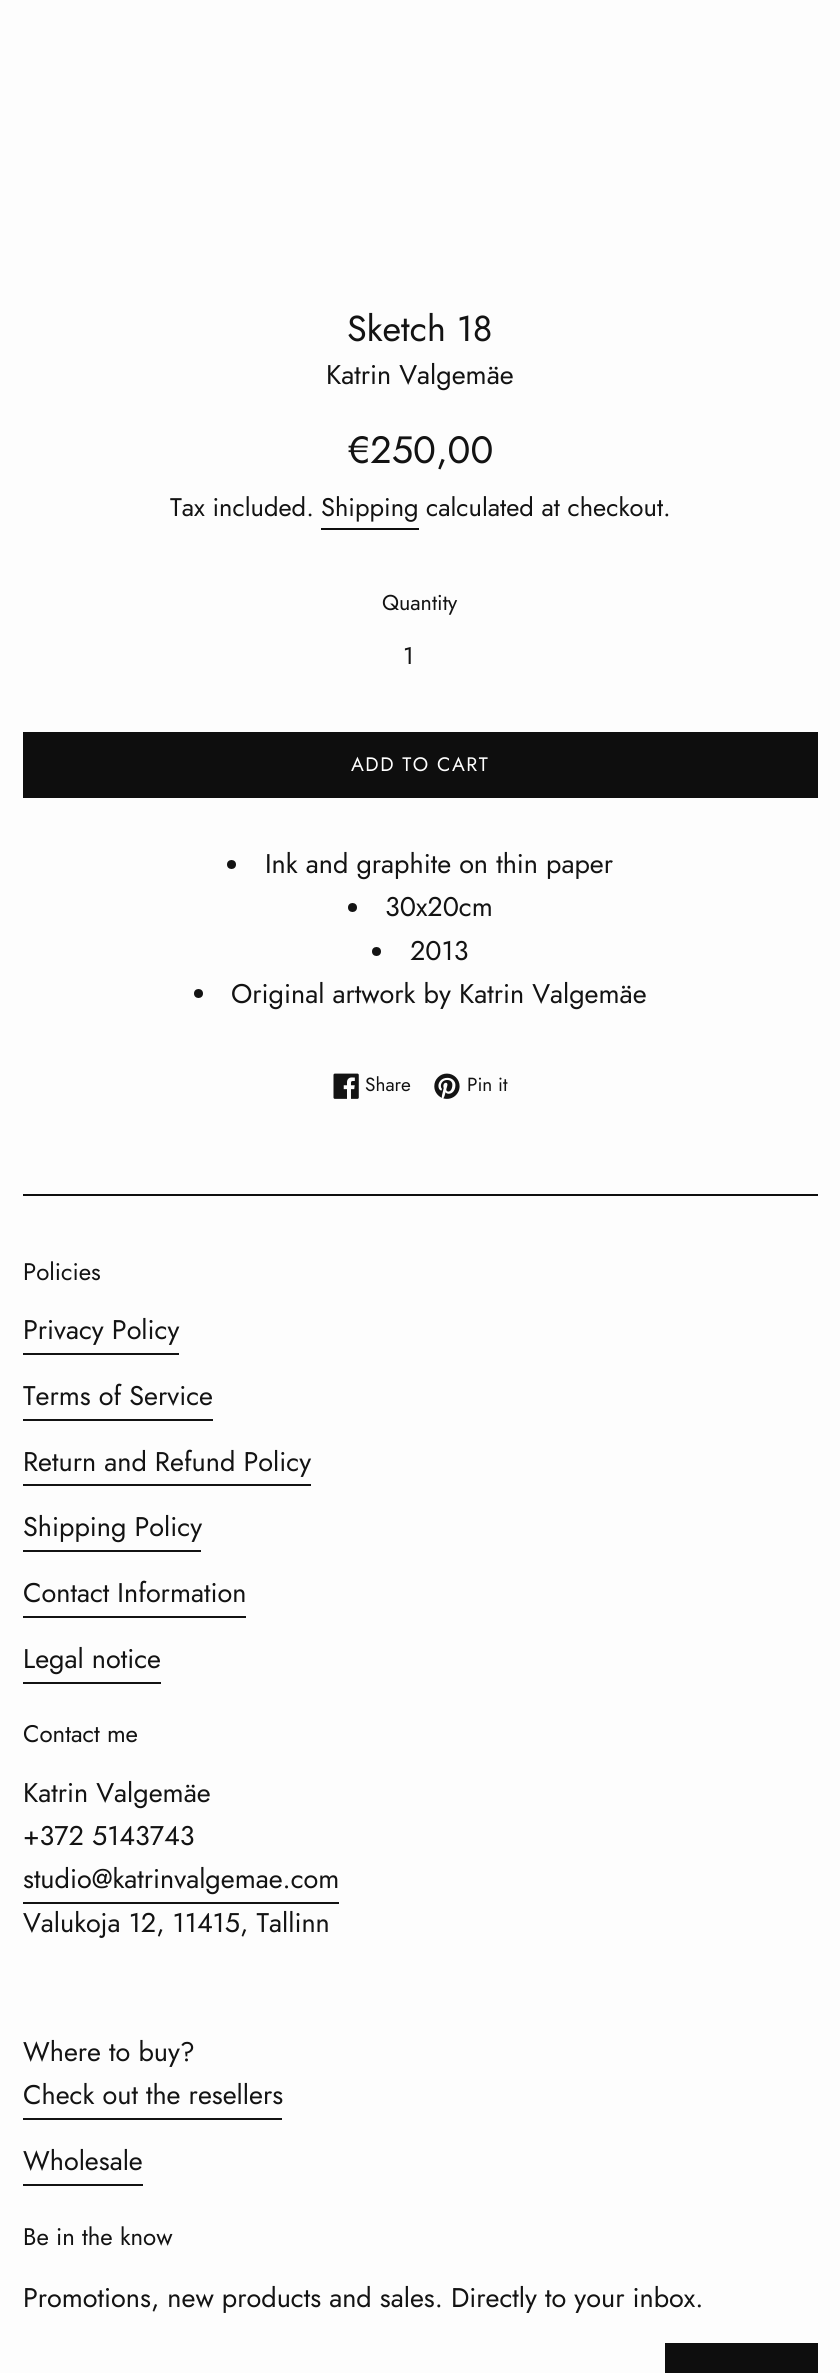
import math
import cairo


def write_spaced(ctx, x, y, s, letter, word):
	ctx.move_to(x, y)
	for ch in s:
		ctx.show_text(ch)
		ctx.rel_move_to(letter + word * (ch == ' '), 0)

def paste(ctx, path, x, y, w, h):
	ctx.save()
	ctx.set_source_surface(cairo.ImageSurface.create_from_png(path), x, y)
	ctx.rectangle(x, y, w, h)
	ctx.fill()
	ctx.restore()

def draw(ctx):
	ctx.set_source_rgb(0.992, 0.992, 0.992)
	ctx.paint()
	ctx.select_font_face('Jost')
	ctx.set_font_size(36)
	ctx.set_source_rgb(0.075, 0.075, 0.075)
	ctx.move_to(347, 341)
	ctx.show_text('Sketch 18')
	ctx.set_font_size(27)
	ctx.move_to(326, 384)
	ctx.show_text('Katrin Valgemäe')
	ctx.set_font_size(38)
	ctx.move_to(348, 463)
	ctx.show_text('€250,00')
	ctx.set_font_size(25.5)
	ctx.move_to(170, 516)
	ctx.show_text('Tax included.')
	ctx.move_to(321, 516)
	ctx.show_text('Shipping')
	ctx.set_source_rgb(0.055, 0.055, 0.055)
	ctx.rectangle(321, 528, 98, 2)
	ctx.fill()
	ctx.set_source_rgb(0.075, 0.075, 0.075)
	ctx.move_to(426, 516)
	ctx.show_text('calculated at checkout.')
	ctx.set_font_size(21.5)
	ctx.move_to(382, 610)
	ctx.show_text('Quantity')
	ctx.set_font_size(24)
	ctx.move_to(403, 664)
	ctx.show_text('1')
	ctx.set_source_rgb(0.055, 0.055, 0.055)
	ctx.rectangle(23, 732, 795, 66)
	ctx.fill()
	ctx.set_font_size(19.5)
	ctx.set_source_rgb(1, 1, 1)
	write_spaced(ctx, 351, 771, 'ADD TO CART', 1.5, 0)
	ctx.set_source_rgb(0.075, 0.075, 0.075)
	ctx.new_path()
	ctx.arc(231.5, 864.5, 4.5, 0, 2 * math.pi)
	ctx.fill()
	ctx.set_font_size(27)
	ctx.move_to(265, 873)
	ctx.show_text('Ink and graphite on thin paper')
	ctx.new_path()
	ctx.arc(352.5, 907.5, 4.5, 0, 2 * math.pi)
	ctx.fill()
	ctx.move_to(385, 916)
	ctx.show_text('30x20cm')
	ctx.new_path()
	ctx.arc(376.5, 951.5, 4.5, 0, 2 * math.pi)
	ctx.fill()
	ctx.move_to(410, 960)
	ctx.show_text('2013')
	ctx.new_path()
	ctx.arc(198.5, 993.5, 4.5, 0, 2 * math.pi)
	ctx.fill()
	ctx.move_to(231, 1003)
	ctx.show_text('Original artwork by Katrin Valgemäe')
	paste(ctx, 'media/1.png', 333, 1073, 26, 26)
	ctx.set_font_size(19)
	ctx.move_to(365, 1091)
	ctx.show_text('Share')
	paste(ctx, 'media/2.png', 434, 1073, 26, 26)
	ctx.move_to(467, 1091)
	ctx.show_text('Pin it')
	ctx.set_source_rgb(0.055, 0.055, 0.055)
	ctx.rectangle(23, 1194, 795, 2)
	ctx.fill()
	ctx.set_font_size(24)
	ctx.set_source_rgb(0.075, 0.075, 0.075)
	ctx.move_to(23, 1280)
	ctx.show_text('Policies')
	ctx.set_font_size(27)
	ctx.move_to(23, 1339)
	ctx.show_text('Privacy Policy')
	ctx.rectangle(23, 1353, 156, 2)
	ctx.fill()
	ctx.move_to(23, 1405)
	ctx.show_text('Terms of Service')
	ctx.rectangle(23, 1419, 190, 2)
	ctx.fill()
	ctx.move_to(23, 1471)
	ctx.show_text('Return and Refund Policy')
	ctx.rectangle(23, 1484, 288, 2)
	ctx.fill()
	ctx.move_to(23, 1536)
	ctx.show_text('Shipping Policy')
	ctx.rectangle(23, 1550, 178, 2)
	ctx.fill()
	ctx.move_to(23, 1602)
	ctx.show_text('Contact Information')
	ctx.rectangle(23, 1616, 223, 2)
	ctx.fill()
	ctx.move_to(23, 1668)
	ctx.show_text('Legal notice')
	ctx.rectangle(23, 1682, 138, 2)
	ctx.fill()
	ctx.set_font_size(24)
	ctx.move_to(23, 1742)
	ctx.show_text('Contact me')
	ctx.set_font_size(27)
	for x, y, s in [
		(23, 1802, 'Katrin Valgemäe'),
		(23, 1845, '+372 5143743'),
		(23, 1888, 'studio@katrinvalgemae.com'),
	]:
		ctx.move_to(x, y)
		ctx.show_text(s)
	ctx.rectangle(23, 1902, 316, 2)
	ctx.fill()
	for x, y, s in [
		(23, 1932, 'Valukoja 12, 11415, Tallinn'),
		(23, 2061, 'Where to buy?'),
		(23, 2104, 'Check out the resellers'),
	]:
		ctx.move_to(x, y)
		ctx.show_text(s)
	ctx.rectangle(23, 2118, 259, 2)
	ctx.fill()
	ctx.move_to(23, 2170)
	ctx.show_text('Wholesale')
	ctx.rectangle(23, 2184, 120, 2)
	ctx.fill()
	ctx.set_font_size(24)
	ctx.move_to(23, 2245)
	ctx.show_text('Be in the know')
	ctx.set_font_size(27)
	ctx.move_to(23, 2307)
	ctx.show_text('Promotions, new products and sales. Directly to your inbox.')
	ctx.set_source_rgb(0.055, 0.055, 0.055)
	ctx.rectangle(665, 2343, 153, 30)
	ctx.fill()


surface = cairo.ImageSurface(cairo.FORMAT_RGB24, 840, 2373)
ctx = cairo.Context(surface)
options = cairo.FontOptions()
options.set_hint_metrics(cairo.HINT_METRICS_OFF)
options.set_hint_style(cairo.HINT_STYLE_NONE)
ctx.set_font_options(options)
ctx.set_miter_limit(4)
draw(ctx)
surface.write_to_png('image.png')
